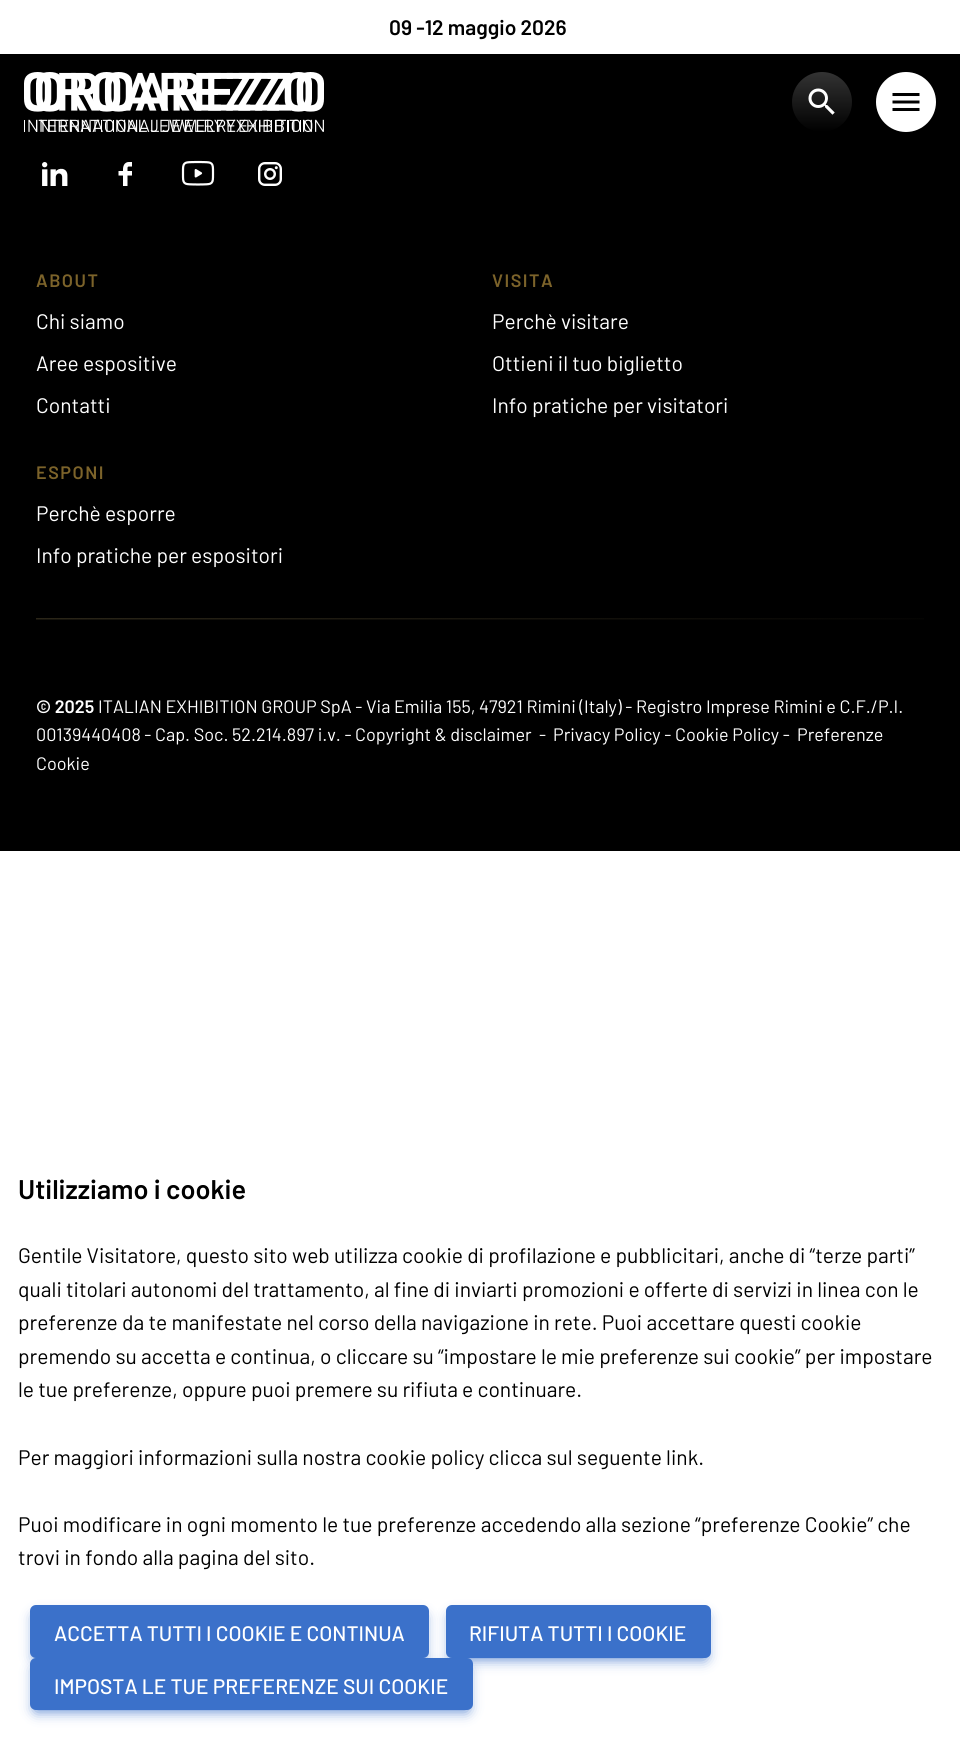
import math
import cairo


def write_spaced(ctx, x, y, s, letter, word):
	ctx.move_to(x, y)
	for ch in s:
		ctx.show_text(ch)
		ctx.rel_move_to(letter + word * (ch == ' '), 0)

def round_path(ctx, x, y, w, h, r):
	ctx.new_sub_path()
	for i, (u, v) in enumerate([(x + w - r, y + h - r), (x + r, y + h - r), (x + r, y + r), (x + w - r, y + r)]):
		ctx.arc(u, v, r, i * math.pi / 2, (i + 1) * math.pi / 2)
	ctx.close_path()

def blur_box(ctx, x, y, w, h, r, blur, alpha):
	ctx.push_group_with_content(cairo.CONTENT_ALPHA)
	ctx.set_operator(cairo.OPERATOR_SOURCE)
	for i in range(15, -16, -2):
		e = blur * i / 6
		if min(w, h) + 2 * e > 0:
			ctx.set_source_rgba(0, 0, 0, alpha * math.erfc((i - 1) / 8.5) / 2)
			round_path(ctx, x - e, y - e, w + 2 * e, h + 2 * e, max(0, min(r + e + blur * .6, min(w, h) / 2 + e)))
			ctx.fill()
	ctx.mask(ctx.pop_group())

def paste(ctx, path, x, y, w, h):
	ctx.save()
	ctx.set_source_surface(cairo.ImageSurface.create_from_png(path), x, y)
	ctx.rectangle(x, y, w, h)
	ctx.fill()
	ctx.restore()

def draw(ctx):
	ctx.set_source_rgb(1, 1, 1)
	ctx.paint()
	ctx.select_font_face('Barlow SemiBold')
	ctx.set_font_size(21)
	ctx.set_source_rgb(0, 0, 0)
	ctx.move_to(389, 35)
	ctx.show_text('09 -12 maggio 2026')
	ctx.rectangle(0, 54, 960, 797)
	ctx.fill()
	paste(ctx, 'media/4.png', 36, 72, 288, 60)
	paste(ctx, 'media/1.png', 24, 72, 288, 60)
	gradient = cairo.LinearGradient(822, 72, 822, 132)
	gradient.add_color_stop_rgba(0, 0.2, 0.2, 0.2, 1)
	gradient.add_color_stop_rgba(1, 0, 0, 0, 1)
	ctx.set_source(gradient)
	ctx.arc(822, 102, 30, 0, 2 * math.pi)
	ctx.fill()
	paste(ctx, 'media/2.png', 808, 88, 27, 27)
	ctx.set_source_rgb(1, 1, 1)
	ctx.arc(906, 102, 30, 0, 2 * math.pi)
	ctx.fill()
	paste(ctx, 'media/3.png', 892, 93, 28, 18)
	paste(ctx, 'media/5.png', 42, 162, 26, 24)
	paste(ctx, 'media/6.png', 118, 162, 14, 24)
	paste(ctx, 'media/7.png', 181, 160, 34, 26)
	paste(ctx, 'media/8.png', 258, 162, 24, 24)
	ctx.set_font_size(18)
	ctx.set_source_rgb(0.486, 0.388, 0.165)
	write_spaced(ctx, 36, 287, 'ABOUT', 1.5, 0)
	ctx.select_font_face('Barlow')
	ctx.set_font_size(21)
	ctx.set_source_rgb(1, 1, 1)
	for x, y, s in [
		(36, 329, 'Chi siamo'),
		(36, 371, 'Aree espositive'),
		(36, 413, 'Contatti'),
	]:
		ctx.move_to(x, y)
		ctx.show_text(s)
	ctx.select_font_face('Barlow SemiBold')
	ctx.set_font_size(18)
	ctx.set_source_rgb(0.486, 0.388, 0.165)
	write_spaced(ctx, 492, 287, 'VISITA', 1.5, 0)
	ctx.select_font_face('Barlow')
	ctx.set_font_size(21)
	ctx.set_source_rgb(1, 1, 1)
	for x, y, s in [
		(492, 329, 'Perchè visitare'),
		(492, 371, 'Ottieni il tuo biglietto'),
		(492, 413, 'Info pratiche per visitatori'),
	]:
		ctx.move_to(x, y)
		ctx.show_text(s)
	ctx.select_font_face('Barlow SemiBold')
	ctx.set_font_size(18)
	ctx.set_source_rgb(0.486, 0.388, 0.165)
	write_spaced(ctx, 36, 479, 'ESPONI', 1.5, 0)
	ctx.select_font_face('Barlow')
	ctx.set_font_size(21)
	ctx.set_source_rgb(1, 1, 1)
	ctx.move_to(36, 521)
	ctx.show_text('Perchè esporre')
	ctx.move_to(36, 563)
	ctx.show_text('Info pratiche per espositori')
	paste(ctx, 'media/9.png', 36, 618, 888, 2)
	ctx.select_font_face('Barlow SemiBold')
	ctx.set_font_size(18)
	ctx.move_to(36, 713)
	ctx.show_text('© 2025')
	ctx.select_font_face('Barlow')
	for x, y, s in [
		(98, 713, 'ITALIAN EXHIBITION GROUP SpA - Via Emilia 155, 47921 Rimini (Italy) - Registro Imprese Rimini e C.F./P.I.'),
		(36, 741, '00139440408 - Cap. Soc. 52.214.897 i.v. - Copyright & disclaimer'),
		(539, 741, '-'),
		(553, 741, 'Privacy Policy - Cookie Policy -'),
		(797, 741, 'Preferenze'),
		(36, 770, 'Cookie'),
	]:
		ctx.move_to(x, y)
		ctx.show_text(s)
	ctx.select_font_face('Barlow SemiBold')
	ctx.set_font_size(27)
	ctx.set_source_rgb(0, 0, 0)
	ctx.move_to(18, 1199)
	ctx.show_text('Utilizziamo i cookie')
	ctx.select_font_face('Barlow')
	ctx.set_font_size(21)
	for x, y, s in [
		(18, 1263, 'Gentile Visitatore, questo sito web utilizza cookie di profilazione e pubblicitari, anche di “terze parti”'),
		(18, 1297, 'quali titolari autonomi del trattamento, al fine di inviarti promozioni e offerte di servizi in linea con le'),
		(18, 1330, 'preferenze da te manifestate nel corso della navigazione in rete. Puoi accettare questi cookie'),
		(18, 1364, 'premendo su accetta e continua, o cliccare su “impostare le mie preferenze sui cookie” per impostare'),
		(18, 1397, 'le tue preferenze, oppure puoi premere su rifiuta e continuare.'),
		(18, 1465, 'Per maggiori informazioni sulla nostra cookie policy clicca sul seguente link.'),
		(18, 1532, 'Puoi modificare in ogni momento le tue preferenze accedendo alla sezione “preferenze Cookie” che'),
		(18, 1565, 'trovi in fondo alla pagina del sito.'),
	]:
		ctx.move_to(x, y)
		ctx.show_text(s)
	ctx.set_source_rgb(0.231, 0.443, 0.792)
	blur_box(ctx, 36, 1617, 387, 41, 0, 7, 1)
	ctx.set_source_rgb(0.231, 0.443, 0.792)
	round_path(ctx, 30, 1605, 399, 53, 6)
	ctx.fill()
	ctx.select_font_face('Barlow Medium')
	ctx.set_source_rgb(1, 1, 1)
	ctx.move_to(54, 1641)
	ctx.show_text('ACCETTA TUTTI I COOKIE E CONTINUA')
	ctx.set_source_rgb(0.231, 0.443, 0.792)
	blur_box(ctx, 452, 1617, 253, 41, 0, 7, 1)
	ctx.set_source_rgb(0.231, 0.443, 0.792)
	round_path(ctx, 446, 1605, 265, 53, 6)
	ctx.fill()
	ctx.set_source_rgb(1, 1, 1)
	ctx.move_to(469, 1641)
	ctx.show_text('RIFIUTA TUTTI I COOKIE')
	ctx.set_source_rgb(0.231, 0.443, 0.792)
	blur_box(ctx, 36, 1670, 431, 40, 0, 7, 1)
	ctx.set_source_rgb(0.231, 0.443, 0.792)
	round_path(ctx, 30, 1658, 443, 52, 6)
	ctx.fill()
	ctx.set_source_rgb(1, 1, 1)
	ctx.move_to(54, 1694)
	ctx.show_text('IMPOSTA LE TUE PREFERENZE SUI COOKIE')


surface = cairo.ImageSurface(cairo.FORMAT_RGB24, 960, 1740)
ctx = cairo.Context(surface)
options = cairo.FontOptions()
options.set_hint_metrics(cairo.HINT_METRICS_OFF)
options.set_hint_style(cairo.HINT_STYLE_NONE)
ctx.set_font_options(options)
ctx.set_miter_limit(4)
draw(ctx)
surface.write_to_png('image.png')
